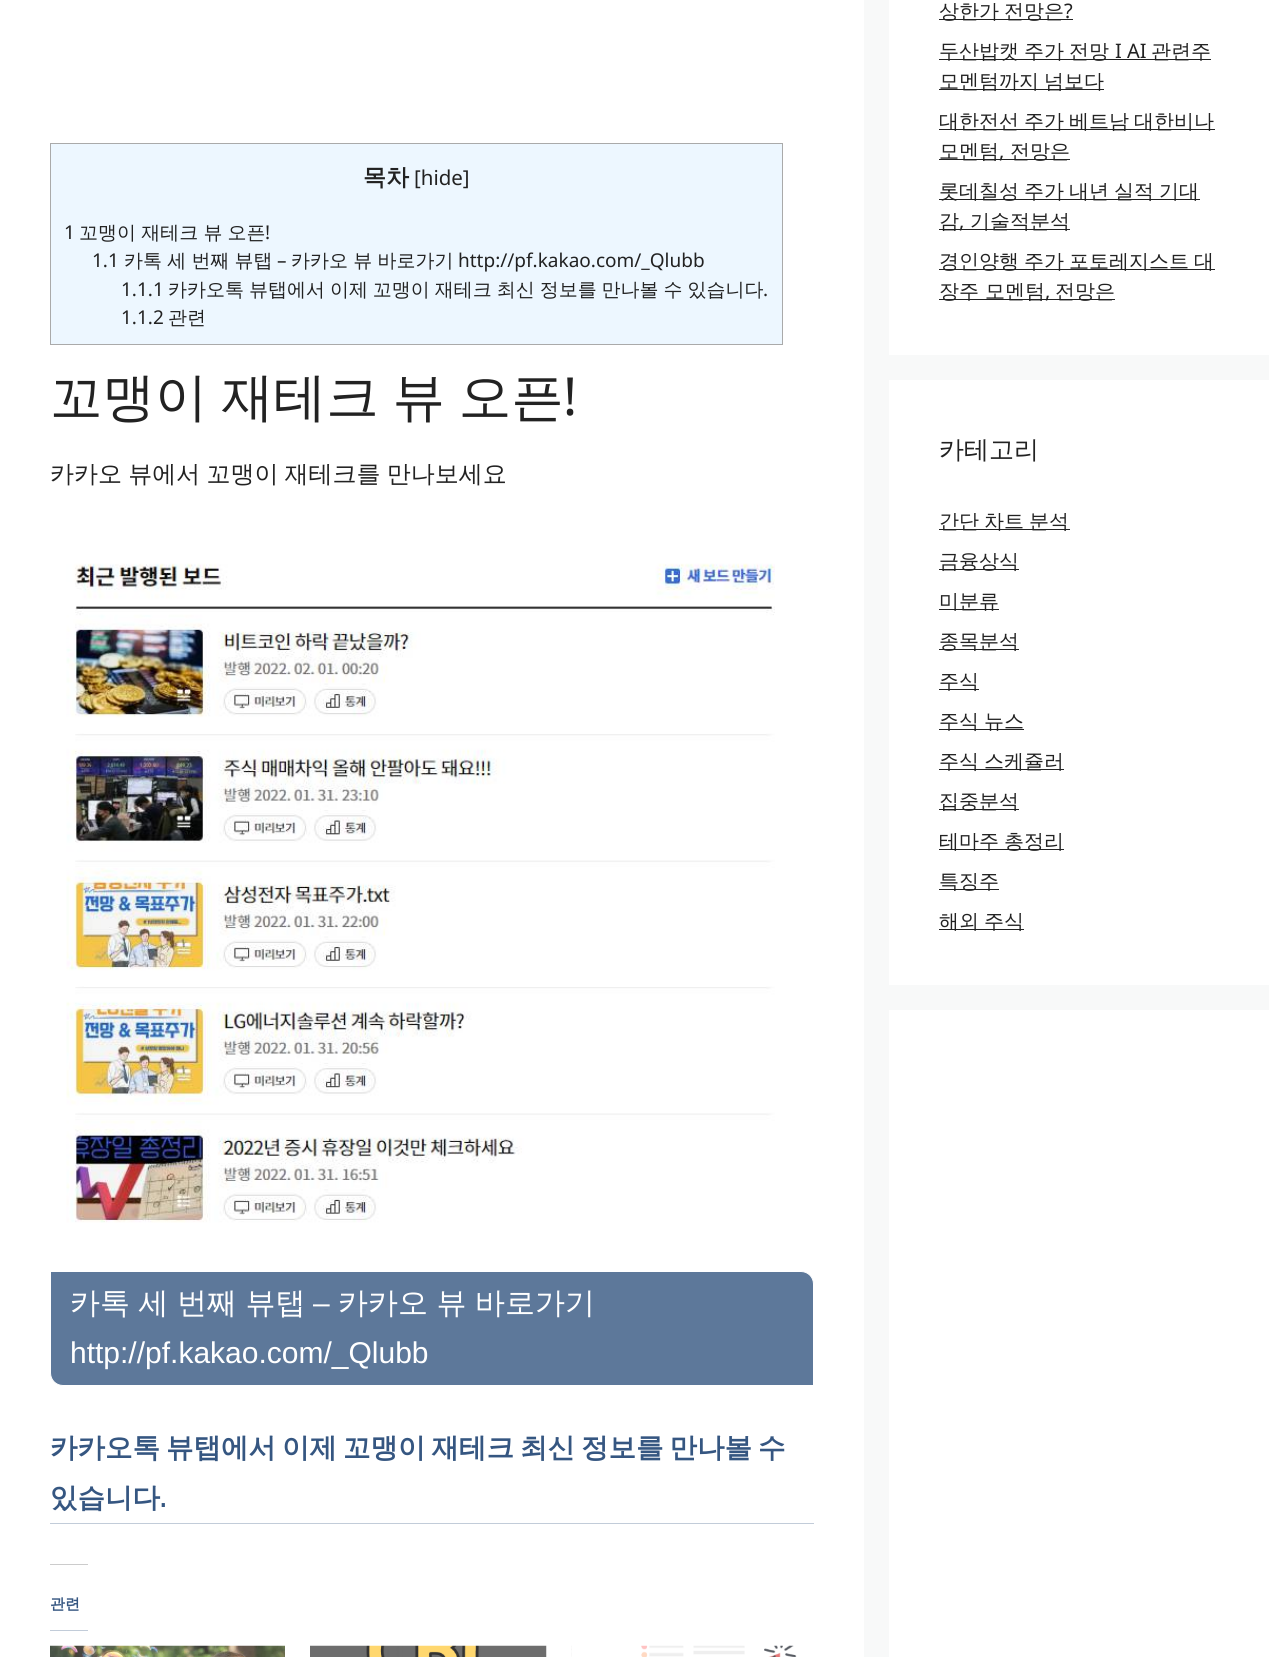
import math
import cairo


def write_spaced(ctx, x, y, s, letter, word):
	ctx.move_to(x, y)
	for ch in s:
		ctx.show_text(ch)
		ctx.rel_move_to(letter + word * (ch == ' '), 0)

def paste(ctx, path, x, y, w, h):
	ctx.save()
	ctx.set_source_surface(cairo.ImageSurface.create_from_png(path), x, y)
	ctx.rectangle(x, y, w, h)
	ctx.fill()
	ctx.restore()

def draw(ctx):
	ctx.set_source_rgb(0.969, 0.973, 0.976)
	ctx.paint()
	ctx.set_source_rgb(1, 1, 1)
	ctx.rectangle(0, 0, 864, 1657)
	ctx.fill()
	ctx.set_source_rgb(0.929, 0.965, 1)
	ctx.rectangle(50.5, 143.5, 732, 201)
	ctx.fill_preserve()
	ctx.set_source_rgb(0.667, 0.667, 0.667)
	ctx.set_line_width(1)
	ctx.stroke()
	ctx.select_font_face('WenQuanYi Zen Hei', cairo.FONT_SLANT_NORMAL, cairo.FONT_WEIGHT_BOLD)
	ctx.set_font_size(23)
	ctx.set_source_rgb(0.133, 0.133, 0.133)
	ctx.move_to(363, 185)
	ctx.show_text('목차')
	ctx.select_font_face('Noto Sans')
	ctx.set_font_size(20.5)
	ctx.move_to(414, 185)
	ctx.show_text('[hide]')
	ctx.set_font_size(19)
	ctx.move_to(64, 239)
	ctx.show_text('1')
	ctx.select_font_face('WenQuanYi Zen Hei Medium')
	write_spaced(ctx, 79, 239, '꼬맹이 재테크 뷰 오픈', 0, -0.5)
	ctx.select_font_face('Noto Sans')
	ctx.move_to(265, 239)
	ctx.show_text('!')
	ctx.move_to(92, 267)
	ctx.show_text('1.1')
	ctx.select_font_face('WenQuanYi Zen Hei Medium')
	write_spaced(ctx, 124, 267, '카톡 세 번째 뷰탭', 0, -0.5)
	ctx.select_font_face('Noto Sans')
	ctx.move_to(277, 267)
	ctx.show_text('–')
	ctx.select_font_face('WenQuanYi Zen Hei Medium')
	write_spaced(ctx, 291, 267, '카카오 뷰 바로가기', 0, -0.5)
	ctx.select_font_face('Noto Sans')
	ctx.move_to(458, 267)
	ctx.show_text('http://pf.kakao.com/_Qlubb')
	ctx.move_to(121, 296)
	ctx.show_text('1.1.1')
	ctx.select_font_face('WenQuanYi Zen Hei Medium')
	write_spaced(ctx, 168, 296, '카카오톡 뷰탭에서 이제 꼬맹이 재테크 최신 정보를 만나볼 수 있습니다', 0, -0.75)
	ctx.select_font_face('Noto Sans')
	ctx.move_to(763, 296)
	ctx.show_text('.')
	ctx.move_to(121, 324)
	ctx.show_text('1.1.2')
	ctx.select_font_face('WenQuanYi Zen Hei Medium')
	ctx.move_to(168, 324)
	ctx.show_text('관련')
	ctx.set_font_size(52.5)
	write_spaced(ctx, 50, 415, '꼬맹이 재테크 뷰 오픈', 0, -2)
	ctx.select_font_face('Noto Sans')
	ctx.move_to(563, 415)
	ctx.show_text('!')
	ctx.select_font_face('WenQuanYi Zen Hei Medium')
	ctx.set_font_size(24)
	write_spaced(ctx, 50, 482, '카카오 뷰에서 꼬맹이 재테크를 만나보세요', 0, -1)
	paste(ctx, 'media/1.png', 66, 563, 709, 660)
	ctx.set_source_rgb(0.365, 0.471, 0.604)
	ctx.new_path()
	ctx.move_to(50.5, 1271.5)
	ctx.line_to(801, 1271.5)
	ctx.curve_to(808, 1271.5, 813.5, 1277, 813.5, 1284)
	ctx.line_to(813.5, 1385.5)
	ctx.line_to(63, 1385.5)
	ctx.curve_to(56, 1385.5, 50.5, 1380, 50.5, 1373)
	ctx.close_path()
	ctx.fill_preserve()
	ctx.set_source_rgb(1, 1, 1)
	ctx.stroke()
	ctx.set_font_size(30)
	write_spaced(ctx, 70, 1313, '카톡 세 번째 뷰탭', 0, -0.5)
	ctx.select_font_face('Liberation Sans')
	ctx.move_to(313, 1313)
	ctx.show_text('–')
	ctx.select_font_face('WenQuanYi Zen Hei Medium')
	write_spaced(ctx, 338, 1313, '카카오 뷰 바로가기', 0, -0.5)
	ctx.select_font_face('Liberation Sans')
	ctx.move_to(70, 1363)
	ctx.show_text('http://pf.kakao.com/_Qlubb')
	ctx.set_source_rgb(0.761, 0.8, 0.851)
	ctx.rectangle(50, 1523, 764, 1)
	ctx.fill()
	ctx.select_font_face('WenQuanYi Zen Hei', cairo.FONT_SLANT_NORMAL, cairo.FONT_WEIGHT_BOLD)
	ctx.set_font_size(27.5)
	ctx.set_source_rgb(0.208, 0.337, 0.506)
	write_spaced(ctx, 50, 1457, '카카오톡 뷰탭에서 이제 꼬맹이 재테크 최신 정보를 만나볼 수', 0, -2.25)
	ctx.move_to(50, 1507)
	ctx.show_text('있습니다')
	ctx.select_font_face('Titillium Web SemiBold')
	ctx.move_to(160, 1507)
	ctx.show_text('.')
	ctx.set_source_rgb(0.761, 0.8, 0.851)
	ctx.rectangle(50, 1630, 38, 1)
	ctx.fill()
	ctx.set_source_rgb(0.8, 0.8, 0.8)
	ctx.rectangle(50, 1564, 38, 1)
	ctx.fill()
	ctx.select_font_face('WenQuanYi Zen Hei', cairo.FONT_SLANT_NORMAL, cairo.FONT_WEIGHT_BOLD)
	ctx.set_font_size(15)
	ctx.set_source_rgb(0.208, 0.337, 0.506)
	ctx.move_to(50, 1609)
	ctx.show_text('관련')
	paste(ctx, 'media/2.png', 50, 1645, 235, 12)
	paste(ctx, 'media/3.png', 310, 1645, 237, 12)
	paste(ctx, 'media/4.png', 571, 1645, 226, 12)
	ctx.set_source_rgb(1, 1, 1)
	ctx.rectangle(889, 0, 380, 355)
	ctx.fill()
	ctx.set_source_rgb(0.133, 0.133, 0.133)
	ctx.rectangle(939, 19, 134, 1)
	ctx.fill()
	ctx.select_font_face('WenQuanYi Zen Hei Medium')
	ctx.set_font_size(20)
	write_spaced(ctx, 939, 18, '상한가 전망은', 0, -1)
	ctx.select_font_face('Noto Sans')
	ctx.move_to(1064, 18)
	ctx.show_text('?')
	ctx.rectangle(939, 59, 272, 1)
	ctx.fill()
	ctx.select_font_face('WenQuanYi Zen Hei Medium')
	for x, y, s in [
		(939, 58, '두산밥캣'),
		(1024, 58, '주가'),
		(1069, 58, '전망'),
	]:
		ctx.move_to(x, y)
		ctx.show_text(s)
	ctx.select_font_face('Noto Sans')
	ctx.move_to(1115, 58)
	ctx.show_text('I AI')
	ctx.select_font_face('WenQuanYi Zen Hei Medium')
	ctx.move_to(1151, 58)
	ctx.show_text('관련주')
	ctx.rectangle(939, 89, 165, 1)
	ctx.fill()
	write_spaced(ctx, 939, 88, '모멘텀까지 넘보다', 0, -1)
	ctx.rectangle(939, 129, 276, 1)
	ctx.fill()
	write_spaced(ctx, 939, 128, '대한전선 주가 베트남 대한비나', 0, -1)
	ctx.rectangle(939, 159, 131, 1)
	ctx.fill()
	ctx.move_to(939, 158)
	ctx.show_text('모멘텀')
	ctx.select_font_face('Noto Sans')
	ctx.move_to(999, 158)
	ctx.show_text(',')
	ctx.select_font_face('WenQuanYi Zen Hei Medium')
	ctx.move_to(1010, 158)
	ctx.show_text('전망은')
	ctx.rectangle(939, 199, 261, 1)
	ctx.fill()
	write_spaced(ctx, 939, 198, '롯데칠성 주가 내년 실적 기대', 0, -1)
	ctx.rectangle(939, 229, 131, 1)
	ctx.fill()
	ctx.move_to(939, 228)
	ctx.show_text('감')
	ctx.select_font_face('Noto Sans')
	ctx.move_to(959, 228)
	ctx.show_text(',')
	ctx.select_font_face('WenQuanYi Zen Hei Medium')
	ctx.move_to(970, 228)
	ctx.show_text('기술적분석')
	ctx.rectangle(939, 269, 276, 1)
	ctx.fill()
	write_spaced(ctx, 939, 268, '경인양행 주가 포토레지스트 대', 0, -1)
	ctx.rectangle(939, 299, 176, 1)
	ctx.fill()
	ctx.move_to(939, 298)
	ctx.show_text('장주 모멘텀')
	ctx.select_font_face('Noto Sans')
	ctx.move_to(1045, 298)
	ctx.show_text(',')
	ctx.select_font_face('WenQuanYi Zen Hei Medium')
	ctx.move_to(1055, 298)
	ctx.show_text('전망은')
	ctx.set_source_rgb(1, 1, 1)
	ctx.rectangle(889, 380, 380, 605)
	ctx.fill()
	ctx.set_font_size(25)
	ctx.set_source_rgb(0.133, 0.133, 0.133)
	ctx.move_to(939, 458)
	ctx.show_text('카테고리')
	ctx.rectangle(939, 529, 131, 1)
	ctx.fill()
	ctx.set_font_size(20)
	write_spaced(ctx, 939, 528, '간단 차트 분석', 0, -1)
	ctx.rectangle(939, 569, 80, 1)
	ctx.fill()
	ctx.move_to(939, 568)
	ctx.show_text('금융상식')
	ctx.rectangle(939, 609, 60, 1)
	ctx.fill()
	ctx.move_to(939, 608)
	ctx.show_text('미분류')
	ctx.rectangle(939, 649, 80, 1)
	ctx.fill()
	ctx.move_to(939, 648)
	ctx.show_text('종목분석')
	ctx.rectangle(939, 689, 40, 1)
	ctx.fill()
	ctx.move_to(939, 688)
	ctx.show_text('주식')
	ctx.rectangle(939, 729, 85, 1)
	ctx.fill()
	write_spaced(ctx, 939, 728, '주식 뉴스', 0, -1)
	ctx.rectangle(939, 769, 125, 1)
	ctx.fill()
	write_spaced(ctx, 939, 768, '주식 스케쥴러', 0, -1)
	ctx.rectangle(939, 809, 80, 1)
	ctx.fill()
	ctx.move_to(939, 808)
	ctx.show_text('집중분석')
	ctx.rectangle(939, 849, 125, 1)
	ctx.fill()
	write_spaced(ctx, 939, 848, '테마주 총정리', 0, -1)
	ctx.rectangle(939, 889, 60, 1)
	ctx.fill()
	ctx.move_to(939, 888)
	ctx.show_text('특징주')
	ctx.rectangle(939, 929, 85, 1)
	ctx.fill()
	write_spaced(ctx, 939, 928, '해외 주식', 0, -1)
	ctx.set_source_rgb(1, 1, 1)
	ctx.rectangle(889, 1010, 380, 647)
	ctx.fill()


surface = cairo.ImageSurface(cairo.FORMAT_RGB24, 1269, 1657)
ctx = cairo.Context(surface)
options = cairo.FontOptions()
options.set_hint_metrics(cairo.HINT_METRICS_OFF)
options.set_hint_style(cairo.HINT_STYLE_NONE)
ctx.set_font_options(options)
ctx.set_miter_limit(4)
draw(ctx)
surface.write_to_png('image.png')
